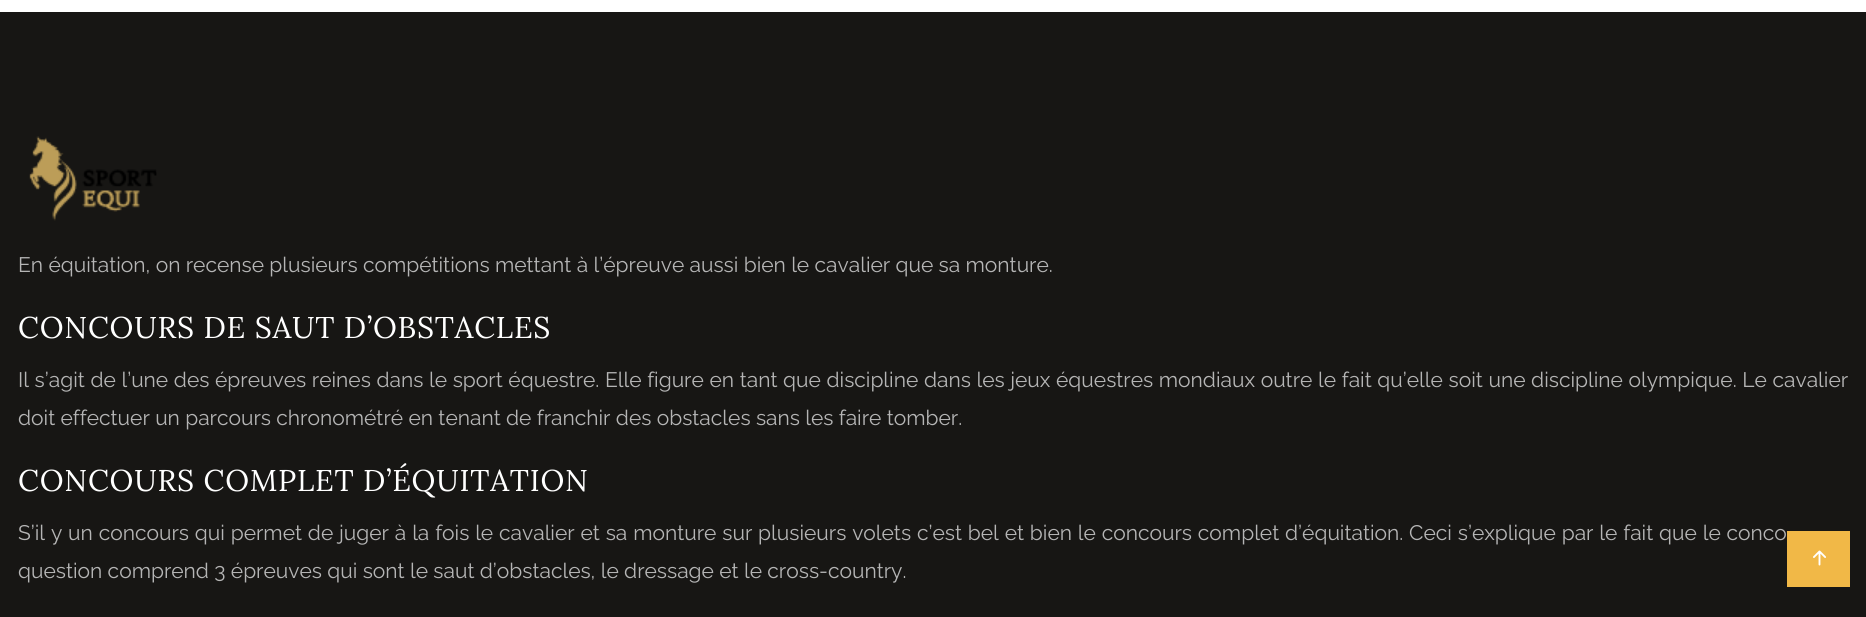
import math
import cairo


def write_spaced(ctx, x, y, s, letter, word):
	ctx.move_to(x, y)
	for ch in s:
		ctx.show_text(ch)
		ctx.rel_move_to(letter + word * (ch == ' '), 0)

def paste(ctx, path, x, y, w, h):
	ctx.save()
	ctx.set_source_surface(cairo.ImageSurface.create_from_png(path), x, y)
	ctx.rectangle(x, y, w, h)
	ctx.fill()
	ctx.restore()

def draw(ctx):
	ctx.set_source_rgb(1, 1, 1)
	ctx.paint()
	ctx.set_source_rgb(0.09, 0.086, 0.082)
	ctx.rectangle(0, 12, 1866, 605)
	ctx.fill()
	paste(ctx, 'media/1.png', 29, 136, 128, 85)
	ctx.select_font_face('Raleway')
	ctx.set_font_size(21)
	ctx.set_source_rgb(0.71, 0.71, 0.71)
	ctx.move_to(18, 272)
	ctx.show_text('En équitation, on recense plusieurs compétitions mettant à l’épreuve aussi bien le cavalier que sa monture.')
	ctx.select_font_face('Lora')
	ctx.set_font_size(30)
	ctx.set_source_rgb(1, 1, 1)
	write_spaced(ctx, 18, 338, 'CONCOURS DE SAUT D’OBSTACLES', 0.75, 0)
	ctx.select_font_face('Raleway')
	ctx.set_font_size(21)
	ctx.set_source_rgb(0.71, 0.71, 0.71)
	write_spaced(ctx, 18, 387, 'Il s’agit de l’une des épreuves reines dans le sport équestre. Elle figure en tant que discipline dans les jeux équestres mondiaux outre le fait qu’elle soit une discipline olympique. Le cavalier', 0, 0.3)
	ctx.move_to(18, 425)
	ctx.show_text('doit effectuer un parcours chronométré en tenant de franchir des obstacles sans les faire tomber.')
	ctx.select_font_face('Lora')
	ctx.set_font_size(30)
	ctx.set_source_rgb(1, 1, 1)
	write_spaced(ctx, 18, 491, 'CONCOURS COMPLET D’ÉQUITATION', 0.75, 0)
	ctx.select_font_face('Raleway')
	ctx.set_font_size(21)
	ctx.set_source_rgb(0.71, 0.71, 0.71)
	write_spaced(ctx, 18, 540, 'S’il y un concours qui permet de juger à la fois le cavalier et sa monture sur plusieurs volets c’est bel et bien le concours complet d’équitation. Ceci s’explique par le fait que le conco', 0, 0.5)
	ctx.move_to(18, 578)
	ctx.show_text('question comprend 3 épreuves qui sont le saut d’obstacles, le dressage et le cross-country.')
	ctx.set_source_rgb(0.945, 0.722, 0.278)
	ctx.rectangle(1787, 531, 63, 56)
	ctx.fill()
	paste(ctx, 'media/2.png', 1813, 550, 13, 16)


surface = cairo.ImageSurface(cairo.FORMAT_RGB24, 1866, 617)
ctx = cairo.Context(surface)
options = cairo.FontOptions()
options.set_hint_metrics(cairo.HINT_METRICS_OFF)
options.set_hint_style(cairo.HINT_STYLE_NONE)
ctx.set_font_options(options)
ctx.set_miter_limit(4)
draw(ctx)
surface.write_to_png('image.png')
